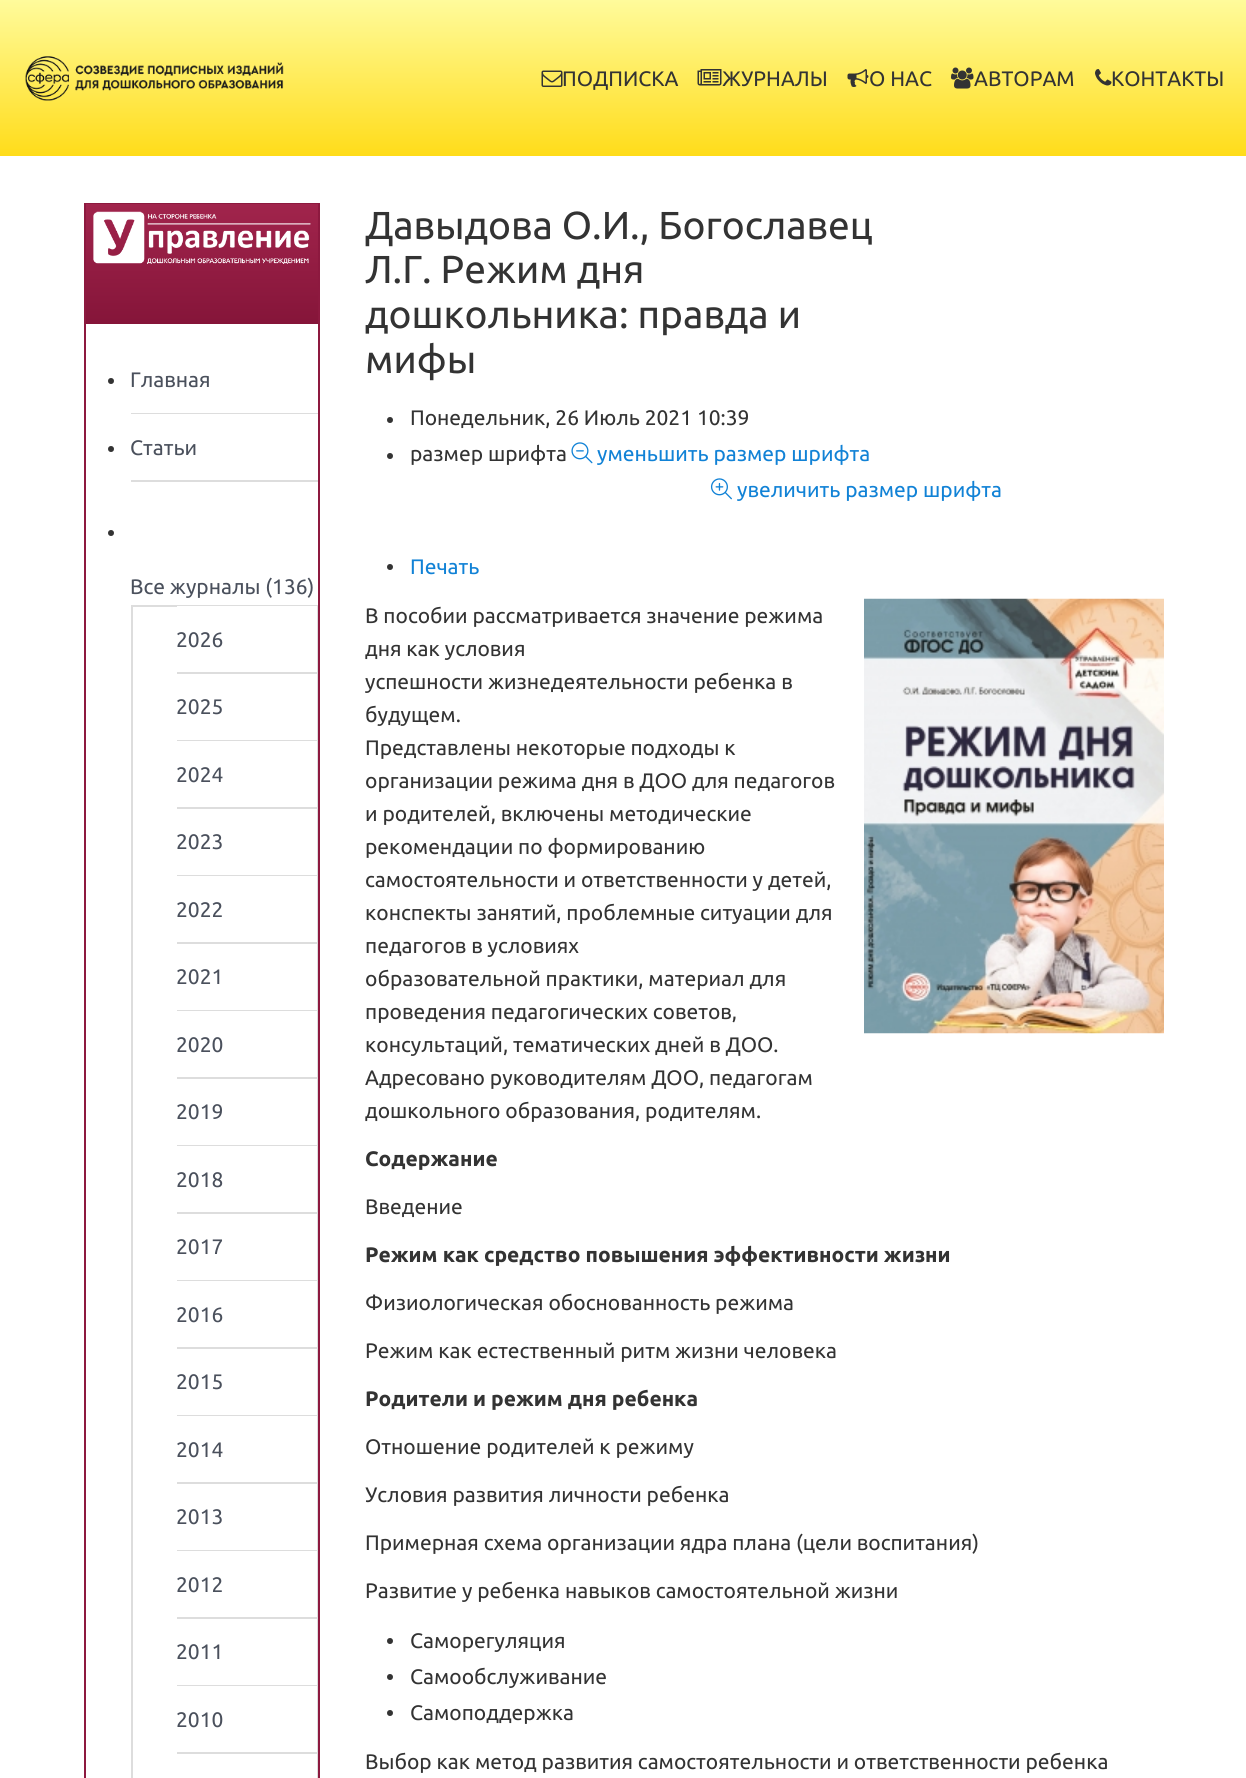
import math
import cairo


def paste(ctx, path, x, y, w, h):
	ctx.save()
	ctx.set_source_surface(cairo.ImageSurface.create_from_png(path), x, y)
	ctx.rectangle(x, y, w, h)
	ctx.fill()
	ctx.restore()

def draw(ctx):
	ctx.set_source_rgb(1, 1, 1)
	ctx.paint()
	gradient = cairo.LinearGradient(623, 0, 623, 156)
	gradient.add_color_stop_rgba(0, 1, 0.984, 0.608, 1)
	gradient.add_color_stop_rgba(1, 1, 0.863, 0.102, 1)
	ctx.set_source(gradient)
	ctx.rectangle(0, 0, 1246, 156)
	ctx.fill()
	paste(ctx, 'media/1.png', 25, 56, 259, 45)
	paste(ctx, 'media/2.png', 541, 70, 22, 17)
	ctx.select_font_face('Ubuntu')
	ctx.set_font_size(21)
	ctx.set_source_rgb(0.2, 0.2, 0.2)
	ctx.move_to(562, 86)
	ctx.show_text('ПОДПИСКА')
	paste(ctx, 'media/3.png', 697, 69, 25, 17)
	ctx.move_to(722, 86)
	ctx.show_text('ЖУРНАЛЫ')
	paste(ctx, 'media/4.png', 847, 69, 22, 18)
	ctx.move_to(869, 86)
	ctx.show_text('О НАС')
	paste(ctx, 'media/5.png', 951, 67, 23, 22)
	ctx.move_to(974, 86)
	ctx.show_text('АВТОРАМ')
	paste(ctx, 'media/6.png', 1095, 69, 17, 17)
	ctx.move_to(1111, 86)
	ctx.show_text('КОНТАКТЫ')
	ctx.rectangle(85, 204, 234, 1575)
	ctx.set_source_rgb(0.553, 0.098, 0.247)
	ctx.stroke()
	gradient = cairo.LinearGradient(202, 204, 202, 324)
	gradient.add_color_stop_rgba(0, 0.631, 0.141, 0.298, 1)
	gradient.add_color_stop_rgba(1, 0.522, 0.082, 0.224, 1)
	ctx.set_source(gradient)
	ctx.rectangle(86, 204, 232, 120)
	ctx.fill()
	paste(ctx, 'media/7.png', 93, 211, 218, 53)
	ctx.set_source_rgb(0.867, 0.867, 0.867)
	ctx.rectangle(131, 413, 187, 1)
	ctx.fill()
	ctx.set_source_rgb(0.2, 0.2, 0.2)
	ctx.arc(111, 381, 3, 0, 2 * math.pi)
	ctx.fill()
	ctx.set_source_rgb(0.29, 0.314, 0.361)
	ctx.move_to(130, 387)
	ctx.show_text('Главная')
	ctx.set_source_rgb(0.867, 0.867, 0.867)
	ctx.rectangle(131, 480, 187, 2)
	ctx.fill()
	ctx.set_source_rgb(0.2, 0.2, 0.2)
	ctx.arc(111, 449, 3, 0, 2 * math.pi)
	ctx.fill()
	ctx.set_source_rgb(0.29, 0.314, 0.361)
	ctx.move_to(130, 455)
	ctx.show_text('Статьи')
	ctx.set_source_rgb(0.2, 0.2, 0.2)
	ctx.new_path()
	ctx.arc(111, 533, 3, 0, 2 * math.pi)
	ctx.fill()
	ctx.set_source_rgb(0.29, 0.314, 0.361)
	ctx.move_to(130, 594)
	ctx.show_text('Все журналы (136)')
	ctx.rectangle(132, 606, 185, 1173)
	ctx.set_source_rgb(0.867, 0.867, 0.867)
	ctx.stroke()
	ctx.set_source_rgb(1, 1, 1)
	ctx.rectangle(177, 606, 140, 66)
	ctx.fill()
	ctx.set_source_rgb(0.867, 0.867, 0.867)
	ctx.rectangle(177, 672, 140, 2)
	ctx.fill()
	ctx.set_source_rgb(0.29, 0.314, 0.361)
	ctx.move_to(176, 647)
	ctx.show_text('2026')
	ctx.set_source_rgb(1, 1, 1)
	ctx.rectangle(316, 674, 1, 66)
	ctx.fill()
	ctx.set_source_rgb(0.867, 0.867, 0.867)
	ctx.rectangle(177, 740, 140, 1)
	ctx.fill()
	ctx.set_source_rgb(0.29, 0.314, 0.361)
	ctx.move_to(176, 714)
	ctx.show_text('2025')
	ctx.set_source_rgb(1, 1, 1)
	ctx.rectangle(316, 741, 1, 66)
	ctx.fill()
	ctx.set_source_rgb(0.867, 0.867, 0.867)
	ctx.rectangle(177, 807, 140, 2)
	ctx.fill()
	ctx.set_source_rgb(0.29, 0.314, 0.361)
	ctx.move_to(176, 782)
	ctx.show_text('2024')
	ctx.set_source_rgb(1, 1, 1)
	ctx.rectangle(316, 809, 1, 66)
	ctx.fill()
	ctx.set_source_rgb(0.867, 0.867, 0.867)
	ctx.rectangle(177, 875, 140, 1)
	ctx.fill()
	ctx.set_source_rgb(0.29, 0.314, 0.361)
	ctx.move_to(176, 849)
	ctx.show_text('2023')
	ctx.set_source_rgb(1, 1, 1)
	ctx.rectangle(316, 876, 1, 66)
	ctx.fill()
	ctx.set_source_rgb(0.867, 0.867, 0.867)
	ctx.rectangle(177, 942, 140, 2)
	ctx.fill()
	ctx.set_source_rgb(0.29, 0.314, 0.361)
	ctx.move_to(176, 917)
	ctx.show_text('2022')
	ctx.set_source_rgb(1, 1, 1)
	ctx.rectangle(316, 944, 1, 66)
	ctx.fill()
	ctx.set_source_rgb(0.867, 0.867, 0.867)
	ctx.rectangle(177, 1010, 140, 1)
	ctx.fill()
	ctx.set_source_rgb(0.29, 0.314, 0.361)
	ctx.move_to(176, 984)
	ctx.show_text('2021')
	ctx.set_source_rgb(1, 1, 1)
	ctx.rectangle(316, 1011, 1, 66)
	ctx.fill()
	ctx.set_source_rgb(0.867, 0.867, 0.867)
	ctx.rectangle(177, 1077, 140, 2)
	ctx.fill()
	ctx.set_source_rgb(0.29, 0.314, 0.361)
	ctx.move_to(176, 1052)
	ctx.show_text('2020')
	ctx.set_source_rgb(1, 1, 1)
	ctx.rectangle(316, 1079, 1, 66)
	ctx.fill()
	ctx.set_source_rgb(0.867, 0.867, 0.867)
	ctx.rectangle(177, 1145, 140, 1)
	ctx.fill()
	ctx.set_source_rgb(0.29, 0.314, 0.361)
	ctx.move_to(176, 1119)
	ctx.show_text('2019')
	ctx.set_source_rgb(1, 1, 1)
	ctx.rectangle(316, 1146, 1, 66)
	ctx.fill()
	ctx.set_source_rgb(0.867, 0.867, 0.867)
	ctx.rectangle(177, 1212, 140, 2)
	ctx.fill()
	ctx.set_source_rgb(0.29, 0.314, 0.361)
	ctx.move_to(176, 1187)
	ctx.show_text('2018')
	ctx.set_source_rgb(1, 1, 1)
	ctx.rectangle(316, 1214, 1, 66)
	ctx.fill()
	ctx.set_source_rgb(0.867, 0.867, 0.867)
	ctx.rectangle(177, 1280, 140, 1)
	ctx.fill()
	ctx.set_source_rgb(0.29, 0.314, 0.361)
	ctx.move_to(176, 1254)
	ctx.show_text('2017')
	ctx.set_source_rgb(1, 1, 1)
	ctx.rectangle(316, 1281, 1, 66)
	ctx.fill()
	ctx.set_source_rgb(0.867, 0.867, 0.867)
	ctx.rectangle(177, 1347, 140, 2)
	ctx.fill()
	ctx.set_source_rgb(0.29, 0.314, 0.361)
	ctx.move_to(176, 1322)
	ctx.show_text('2016')
	ctx.set_source_rgb(1, 1, 1)
	ctx.rectangle(316, 1349, 1, 66)
	ctx.fill()
	ctx.set_source_rgb(0.867, 0.867, 0.867)
	ctx.rectangle(177, 1415, 140, 1)
	ctx.fill()
	ctx.set_source_rgb(0.29, 0.314, 0.361)
	ctx.move_to(176, 1389)
	ctx.show_text('2015')
	ctx.set_source_rgb(1, 1, 1)
	ctx.rectangle(316, 1416, 1, 66)
	ctx.fill()
	ctx.set_source_rgb(0.867, 0.867, 0.867)
	ctx.rectangle(177, 1482, 140, 2)
	ctx.fill()
	ctx.set_source_rgb(0.29, 0.314, 0.361)
	ctx.move_to(176, 1457)
	ctx.show_text('2014')
	ctx.set_source_rgb(1, 1, 1)
	ctx.rectangle(316, 1484, 1, 66)
	ctx.fill()
	ctx.set_source_rgb(0.867, 0.867, 0.867)
	ctx.rectangle(177, 1550, 140, 1)
	ctx.fill()
	ctx.set_source_rgb(0.29, 0.314, 0.361)
	ctx.move_to(176, 1524)
	ctx.show_text('2013')
	ctx.set_source_rgb(1, 1, 1)
	ctx.rectangle(316, 1551, 1, 66)
	ctx.fill()
	ctx.set_source_rgb(0.867, 0.867, 0.867)
	ctx.rectangle(177, 1617, 140, 2)
	ctx.fill()
	ctx.set_source_rgb(0.29, 0.314, 0.361)
	ctx.move_to(176, 1592)
	ctx.show_text('2012')
	ctx.set_source_rgb(1, 1, 1)
	ctx.rectangle(316, 1619, 1, 66)
	ctx.fill()
	ctx.set_source_rgb(0.867, 0.867, 0.867)
	ctx.rectangle(177, 1685, 140, 1)
	ctx.fill()
	ctx.set_source_rgb(0.29, 0.314, 0.361)
	ctx.move_to(176, 1659)
	ctx.show_text('2011')
	ctx.set_source_rgb(1, 1, 1)
	ctx.rectangle(316, 1686, 1, 66)
	ctx.fill()
	ctx.set_source_rgb(0.867, 0.867, 0.867)
	ctx.rectangle(177, 1752, 140, 2)
	ctx.fill()
	ctx.set_source_rgb(0.29, 0.314, 0.361)
	ctx.move_to(176, 1727)
	ctx.show_text('2010')
	ctx.set_source_rgb(1, 1, 1)
	ctx.rectangle(316, 1754, 1, 24)
	ctx.fill()
	ctx.set_font_size(39)
	ctx.set_source_rgb(0.2, 0.2, 0.2)
	for x, y, s in [
		(365, 239, 'Давыдова О.И., Богославец'),
		(365, 283, 'Л.Г. Режим дня'),
		(365, 328, 'дошкольника: правда и'),
		(365, 373, 'мифы'),
	]:
		ctx.move_to(x, y)
		ctx.show_text(s)
	ctx.new_path()
	ctx.arc(390, 420, 3, 0, 2 * math.pi)
	ctx.fill()
	ctx.set_font_size(21)
	ctx.move_to(410, 425)
	ctx.show_text('Понедельник, 26 Июль 2021 10:39')
	ctx.new_path()
	ctx.arc(390, 456, 3, 0, 2 * math.pi)
	ctx.fill()
	ctx.move_to(410, 461)
	ctx.show_text('размер шрифта')
	paste(ctx, 'media/8.png', 571, 442, 22, 22)
	ctx.set_source_rgb(0.067, 0.51, 0.839)
	ctx.move_to(597, 461)
	ctx.show_text('уменьшить размер шрифта')
	paste(ctx, 'media/9.png', 710, 478, 22, 22)
	ctx.move_to(737, 497)
	ctx.show_text('увеличить размер шрифта')
	ctx.set_source_rgb(0.2, 0.2, 0.2)
	ctx.new_path()
	ctx.arc(390, 567, 3, 0, 2 * math.pi)
	ctx.fill()
	ctx.set_source_rgb(0.067, 0.51, 0.839)
	ctx.move_to(410, 574)
	ctx.show_text('Печать')
	paste(ctx, 'media/10.png', 864, 598, 300, 436)
	ctx.set_source_rgb(0.2, 0.2, 0.2)
	for x, y, s in [
		(365, 623, 'В пособии рассматривается значение режима'),
		(365, 656, 'дня как условия'),
		(365, 689, 'успешности жизнедеятельности ребенка в'),
		(365, 722, 'будущем.'),
		(365, 755, 'Представлены некоторые подходы к'),
		(365, 788, 'организации режима дня в ДОО для педагогов'),
		(365, 821, 'и родителей, включены методические'),
		(365, 854, 'рекомендации по формированию'),
		(365, 887, 'самостоятельности и ответственности у детей,'),
		(365, 920, 'конспекты занятий, проблемные ситуации для'),
		(365, 953, 'педагогов в условиях'),
		(365, 986, 'образовательной практики, материал для'),
		(365, 1019, 'проведения педагогических советов,'),
		(365, 1052, 'консультаций, тематических дней в ДОО.'),
		(365, 1085, 'Адресовано руководителям ДОО, педагогам'),
		(365, 1118, 'дошкольного образования, родителям.'),
	]:
		ctx.move_to(x, y)
		ctx.show_text(s)
	ctx.select_font_face('Ubuntu', cairo.FONT_SLANT_NORMAL, cairo.FONT_WEIGHT_BOLD)
	ctx.move_to(365, 1166)
	ctx.show_text('Содержание')
	ctx.select_font_face('Ubuntu')
	ctx.move_to(365, 1214)
	ctx.show_text('Введение')
	ctx.select_font_face('Ubuntu', cairo.FONT_SLANT_NORMAL, cairo.FONT_WEIGHT_BOLD)
	ctx.move_to(365, 1262)
	ctx.show_text('Режим как средство повышения эффективности жизни')
	ctx.select_font_face('Ubuntu')
	ctx.move_to(365, 1310)
	ctx.show_text('Физиологическая обоснованность режима')
	ctx.move_to(365, 1358)
	ctx.show_text('Режим как естественный ритм жизни человека')
	ctx.select_font_face('Ubuntu', cairo.FONT_SLANT_NORMAL, cairo.FONT_WEIGHT_BOLD)
	ctx.move_to(365, 1406)
	ctx.show_text('Родители и режим дня ребенка')
	ctx.select_font_face('Ubuntu')
	for x, y, s in [
		(365, 1454, 'Отношение родителей к режиму'),
		(365, 1502, 'Условия развития личности ребенка'),
		(365, 1550, 'Примерная схема организации ядра плана (цели воспитания)'),
		(365, 1598, 'Развитие у ребенка навыков самостоятельной жизни'),
	]:
		ctx.move_to(x, y)
		ctx.show_text(s)
	ctx.new_path()
	ctx.arc(390, 1641, 3, 0, 2 * math.pi)
	ctx.fill()
	ctx.move_to(410, 1648)
	ctx.show_text('Саморегуляция')
	ctx.new_path()
	ctx.arc(390, 1677, 3, 0, 2 * math.pi)
	ctx.fill()
	ctx.move_to(410, 1684)
	ctx.show_text('Самообслуживание')
	ctx.new_path()
	ctx.arc(390, 1713, 3, 0, 2 * math.pi)
	ctx.fill()
	ctx.move_to(410, 1720)
	ctx.show_text('Самоподдержка')
	ctx.move_to(365, 1769)
	ctx.show_text('Выбор как метод развития самостоятельности и ответственности ребенка')


surface = cairo.ImageSurface(cairo.FORMAT_RGB24, 1246, 1778)
ctx = cairo.Context(surface)
options = cairo.FontOptions()
options.set_hint_metrics(cairo.HINT_METRICS_OFF)
options.set_hint_style(cairo.HINT_STYLE_NONE)
ctx.set_font_options(options)
ctx.set_miter_limit(4)
draw(ctx)
surface.write_to_png('image.png')
